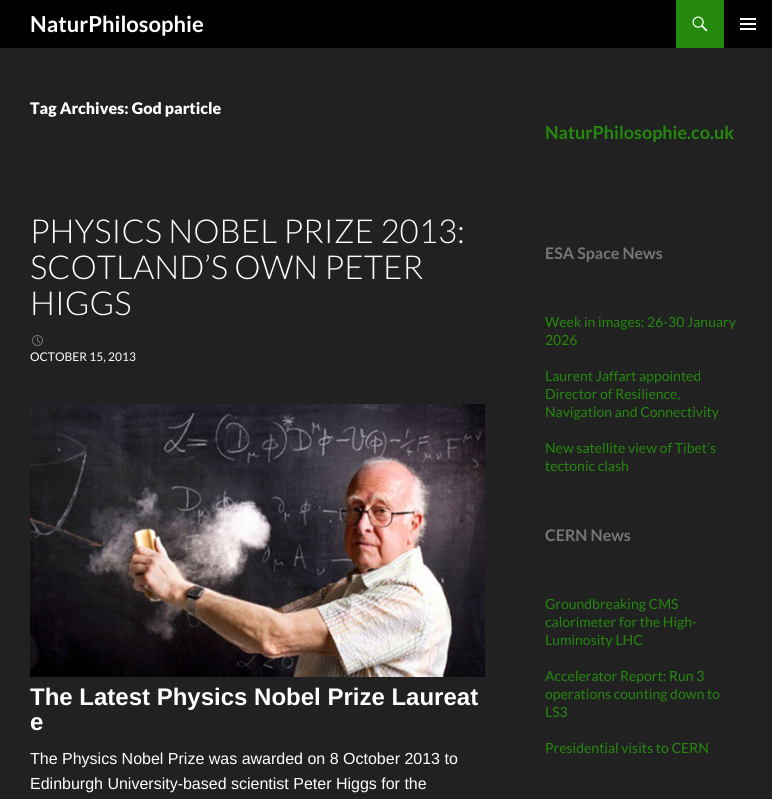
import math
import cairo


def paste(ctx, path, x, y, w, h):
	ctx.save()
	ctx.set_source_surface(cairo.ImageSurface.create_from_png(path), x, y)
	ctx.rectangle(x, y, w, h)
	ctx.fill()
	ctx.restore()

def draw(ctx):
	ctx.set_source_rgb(0.129, 0.129, 0.129)
	ctx.paint()
	ctx.set_source_rgb(0, 0, 0)
	ctx.rectangle(0, 0, 772, 48)
	ctx.fill()
	ctx.select_font_face('Lato', cairo.FONT_SLANT_NORMAL, cairo.FONT_WEIGHT_BOLD)
	ctx.set_font_size(22)
	ctx.set_source_rgb(1, 1, 1)
	ctx.move_to(30, 32)
	ctx.show_text('NaturPhilosophie')
	ctx.set_source_rgb(0.141, 0.537, 0.051)
	ctx.rectangle(676, 0, 48, 48)
	ctx.fill()
	paste(ctx, 'media/1.png', 692, 16, 16, 16)
	paste(ctx, 'media/2.png', 740, 18, 16, 12)
	ctx.select_font_face('Lato Black')
	ctx.set_font_size(16)
	ctx.set_source_rgb(1, 1, 1)
	ctx.move_to(30, 114)
	ctx.show_text('Tag Archives: God particle')
	ctx.select_font_face('Lato Light')
	ctx.set_font_size(33)
	for x, y, s in [
		(30, 243, 'PHYSICS NOBEL PRIZE 2013:'),
		(30, 279, 'SCOTLAND’S OWN PETER'),
		(30, 315, 'HIGGS'),
	]:
		ctx.move_to(x, y)
		ctx.show_text(s)
	paste(ctx, 'media/3.png', 32, 335, 11, 11)
	ctx.select_font_face('Lato')
	ctx.set_font_size(12)
	ctx.move_to(30, 361)
	ctx.show_text('OCTOBER 15, 2013')
	paste(ctx, 'media/4.png', 30, 404, 455, 273)
	ctx.select_font_face('Liberation Sans', cairo.FONT_SLANT_NORMAL, cairo.FONT_WEIGHT_BOLD)
	ctx.set_font_size(24)
	ctx.move_to(30, 705)
	ctx.show_text('The Latest Physics Nobel Prize Laureat')
	ctx.move_to(30, 730)
	ctx.show_text('e')
	ctx.select_font_face('Liberation Sans')
	ctx.set_font_size(16)
	ctx.move_to(30, 764)
	ctx.show_text('The Physics Nobel Prize was awarded on 8 October 2013 to')
	ctx.move_to(30, 789)
	ctx.show_text('Edinburgh University-based scientist Peter Higgs for the')
	ctx.select_font_face('Lato', cairo.FONT_SLANT_NORMAL, cairo.FONT_WEIGHT_BOLD)
	ctx.set_font_size(18)
	ctx.set_source_rgb(0.141, 0.537, 0.051)
	ctx.move_to(545, 139)
	ctx.show_text('NaturPhilosophie.co.uk')
	ctx.set_source_rgb(0.118, 0.118, 0.118)
	ctx.rectangle(593, 192, 100, 1)
	ctx.fill()
	ctx.set_font_size(16)
	ctx.set_source_rgb(0.463, 0.463, 0.463)
	ctx.move_to(545, 259)
	ctx.show_text('ESA Space News')
	ctx.select_font_face('Lato')
	ctx.set_font_size(14)
	ctx.set_source_rgb(0.141, 0.537, 0.051)
	for x, y, s in [
		(545, 327, 'Week in images: 26-30 January'),
		(545, 345, '2026'),
		(545, 381, 'Laurent Jaffart appointed'),
		(545, 399, 'Director of Resilience,'),
		(545, 417, 'Navigation and Connectivity'),
		(545, 453, 'New satellite view of Tibet’s'),
		(545, 471, 'tectonic clash'),
	]:
		ctx.move_to(x, y)
		ctx.show_text(s)
	ctx.select_font_face('Lato', cairo.FONT_SLANT_NORMAL, cairo.FONT_WEIGHT_BOLD)
	ctx.set_font_size(16)
	ctx.set_source_rgb(0.463, 0.463, 0.463)
	ctx.move_to(545, 541)
	ctx.show_text('CERN News')
	ctx.select_font_face('Lato')
	ctx.set_font_size(14)
	ctx.set_source_rgb(0.141, 0.537, 0.051)
	for x, y, s in [
		(545, 609, 'Groundbreaking CMS'),
		(545, 627, 'calorimeter for the High-'),
		(545, 645, 'Luminosity LHC'),
		(545, 681, 'Accelerator Report: Run 3'),
		(545, 699, 'operations counting down to'),
		(545, 717, 'LS3'),
		(545, 753, 'Presidential visits to CERN'),
	]:
		ctx.move_to(x, y)
		ctx.show_text(s)


surface = cairo.ImageSurface(cairo.FORMAT_RGB24, 772, 799)
ctx = cairo.Context(surface)
options = cairo.FontOptions()
options.set_hint_metrics(cairo.HINT_METRICS_OFF)
options.set_hint_style(cairo.HINT_STYLE_NONE)
ctx.set_font_options(options)
ctx.set_miter_limit(4)
draw(ctx)
surface.write_to_png('image.png')
